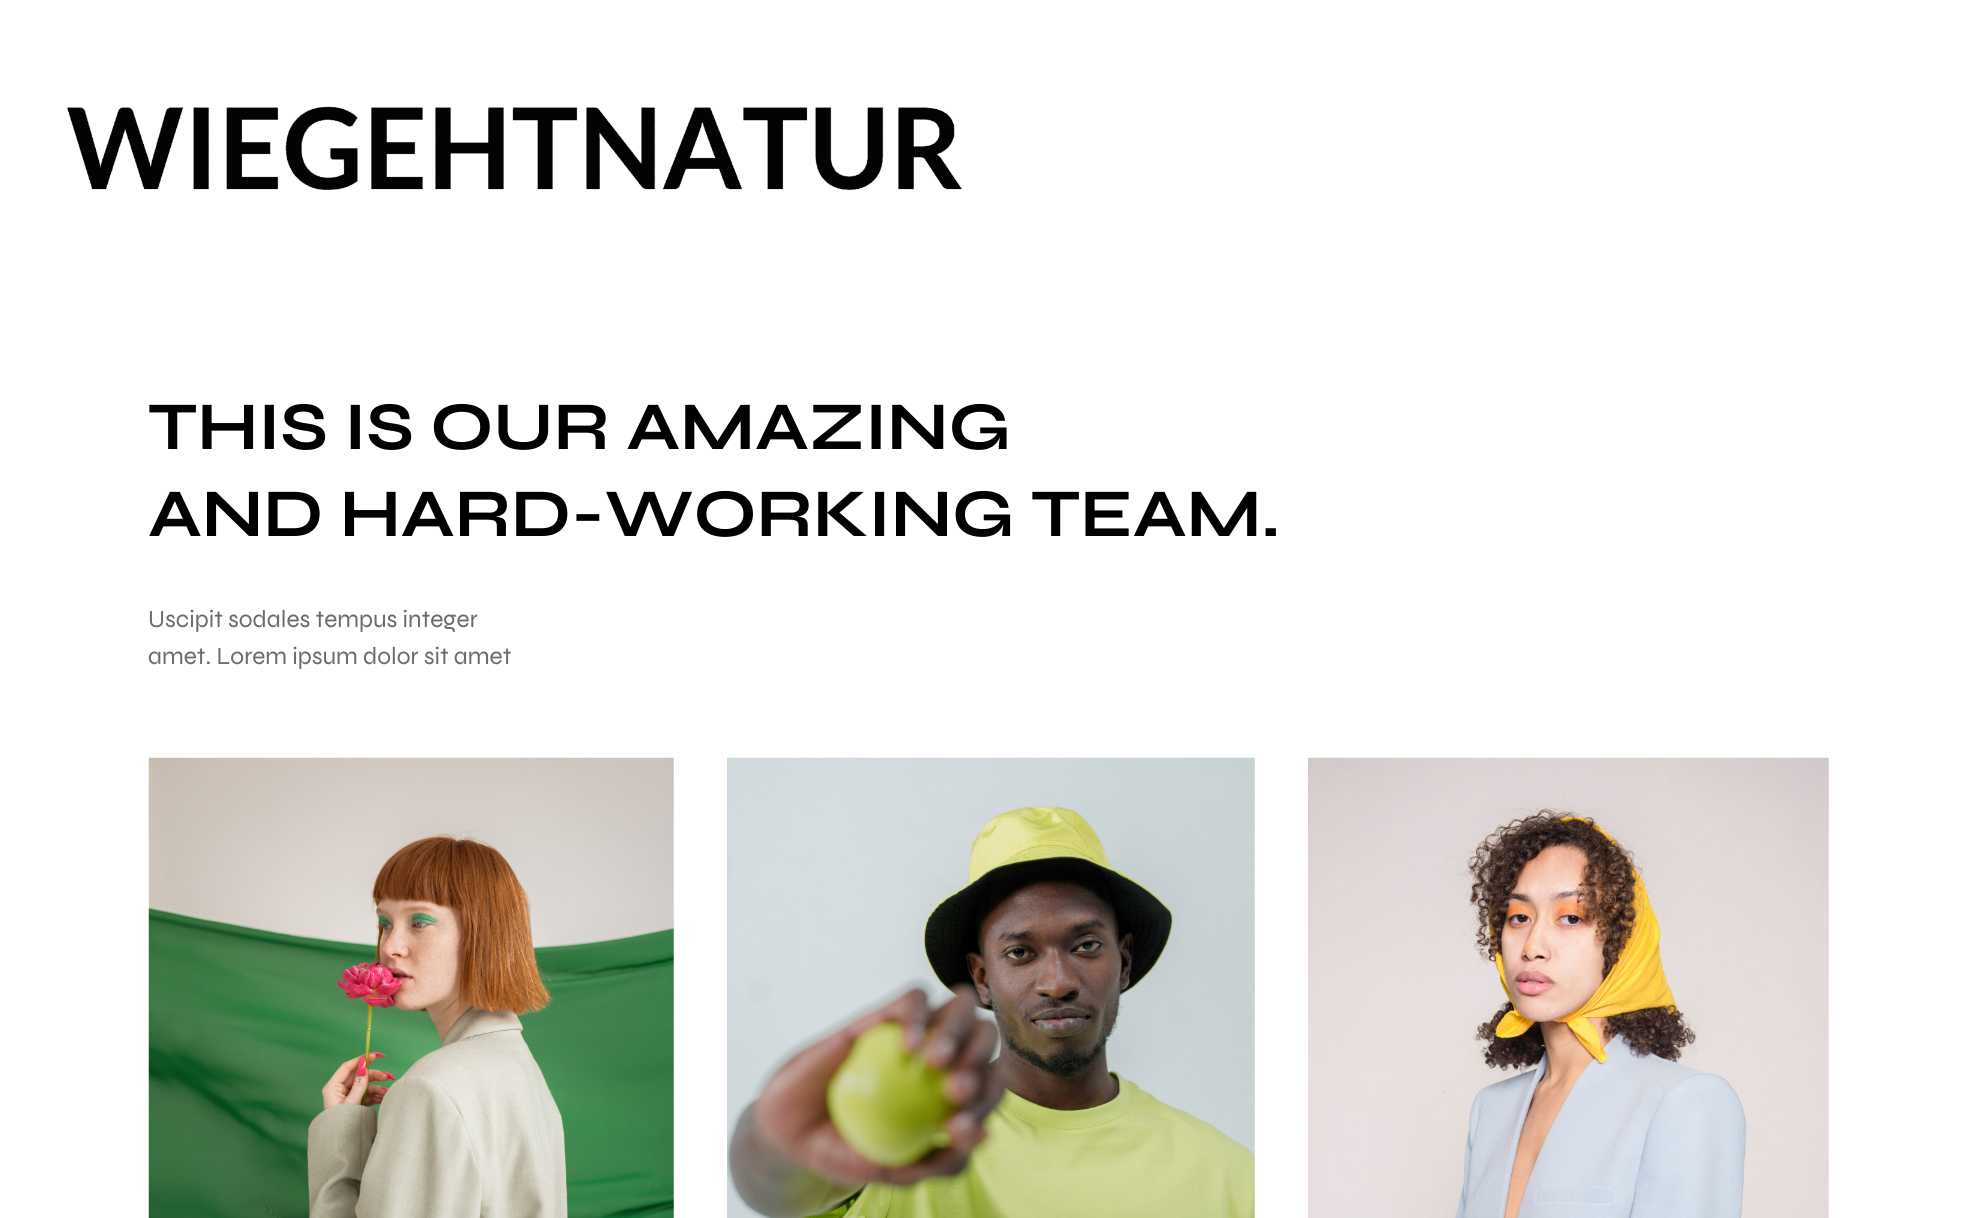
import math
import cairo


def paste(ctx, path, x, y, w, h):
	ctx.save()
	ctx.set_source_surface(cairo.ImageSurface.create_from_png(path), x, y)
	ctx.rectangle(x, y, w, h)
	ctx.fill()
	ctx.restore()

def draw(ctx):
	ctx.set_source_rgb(1, 1, 1)
	ctx.paint()
	paste(ctx, 'media/1.png', 67, 106, 895, 84)
	ctx.select_font_face('Syne', cairo.FONT_SLANT_NORMAL, cairo.FONT_WEIGHT_BOLD)
	ctx.set_font_size(68.25)
	ctx.set_source_rgb(0, 0, 0)
	ctx.move_to(148, 449)
	ctx.show_text('THIS IS OUR AMAZING')
	ctx.move_to(148, 536)
	ctx.show_text('AND HARD-WORKING TEAM.')
	ctx.select_font_face('Syne')
	ctx.set_font_size(24.5)
	ctx.set_source_rgb(0.42, 0.42, 0.42)
	ctx.move_to(148, 627)
	ctx.show_text('Uscipit sodales tempus integer')
	ctx.move_to(148, 664)
	ctx.show_text('amet. Lorem ipsum dolor sit amet')
	paste(ctx, 'media/2.png', 148, 757, 526, 461)
	paste(ctx, 'media/3.png', 727, 757, 528, 461)
	paste(ctx, 'media/4.png', 1307, 757, 522, 461)


surface = cairo.ImageSurface(cairo.FORMAT_RGB24, 1982, 1218)
ctx = cairo.Context(surface)
options = cairo.FontOptions()
options.set_hint_metrics(cairo.HINT_METRICS_OFF)
options.set_hint_style(cairo.HINT_STYLE_NONE)
ctx.set_font_options(options)
ctx.set_miter_limit(4)
draw(ctx)
surface.write_to_png('image.png')
